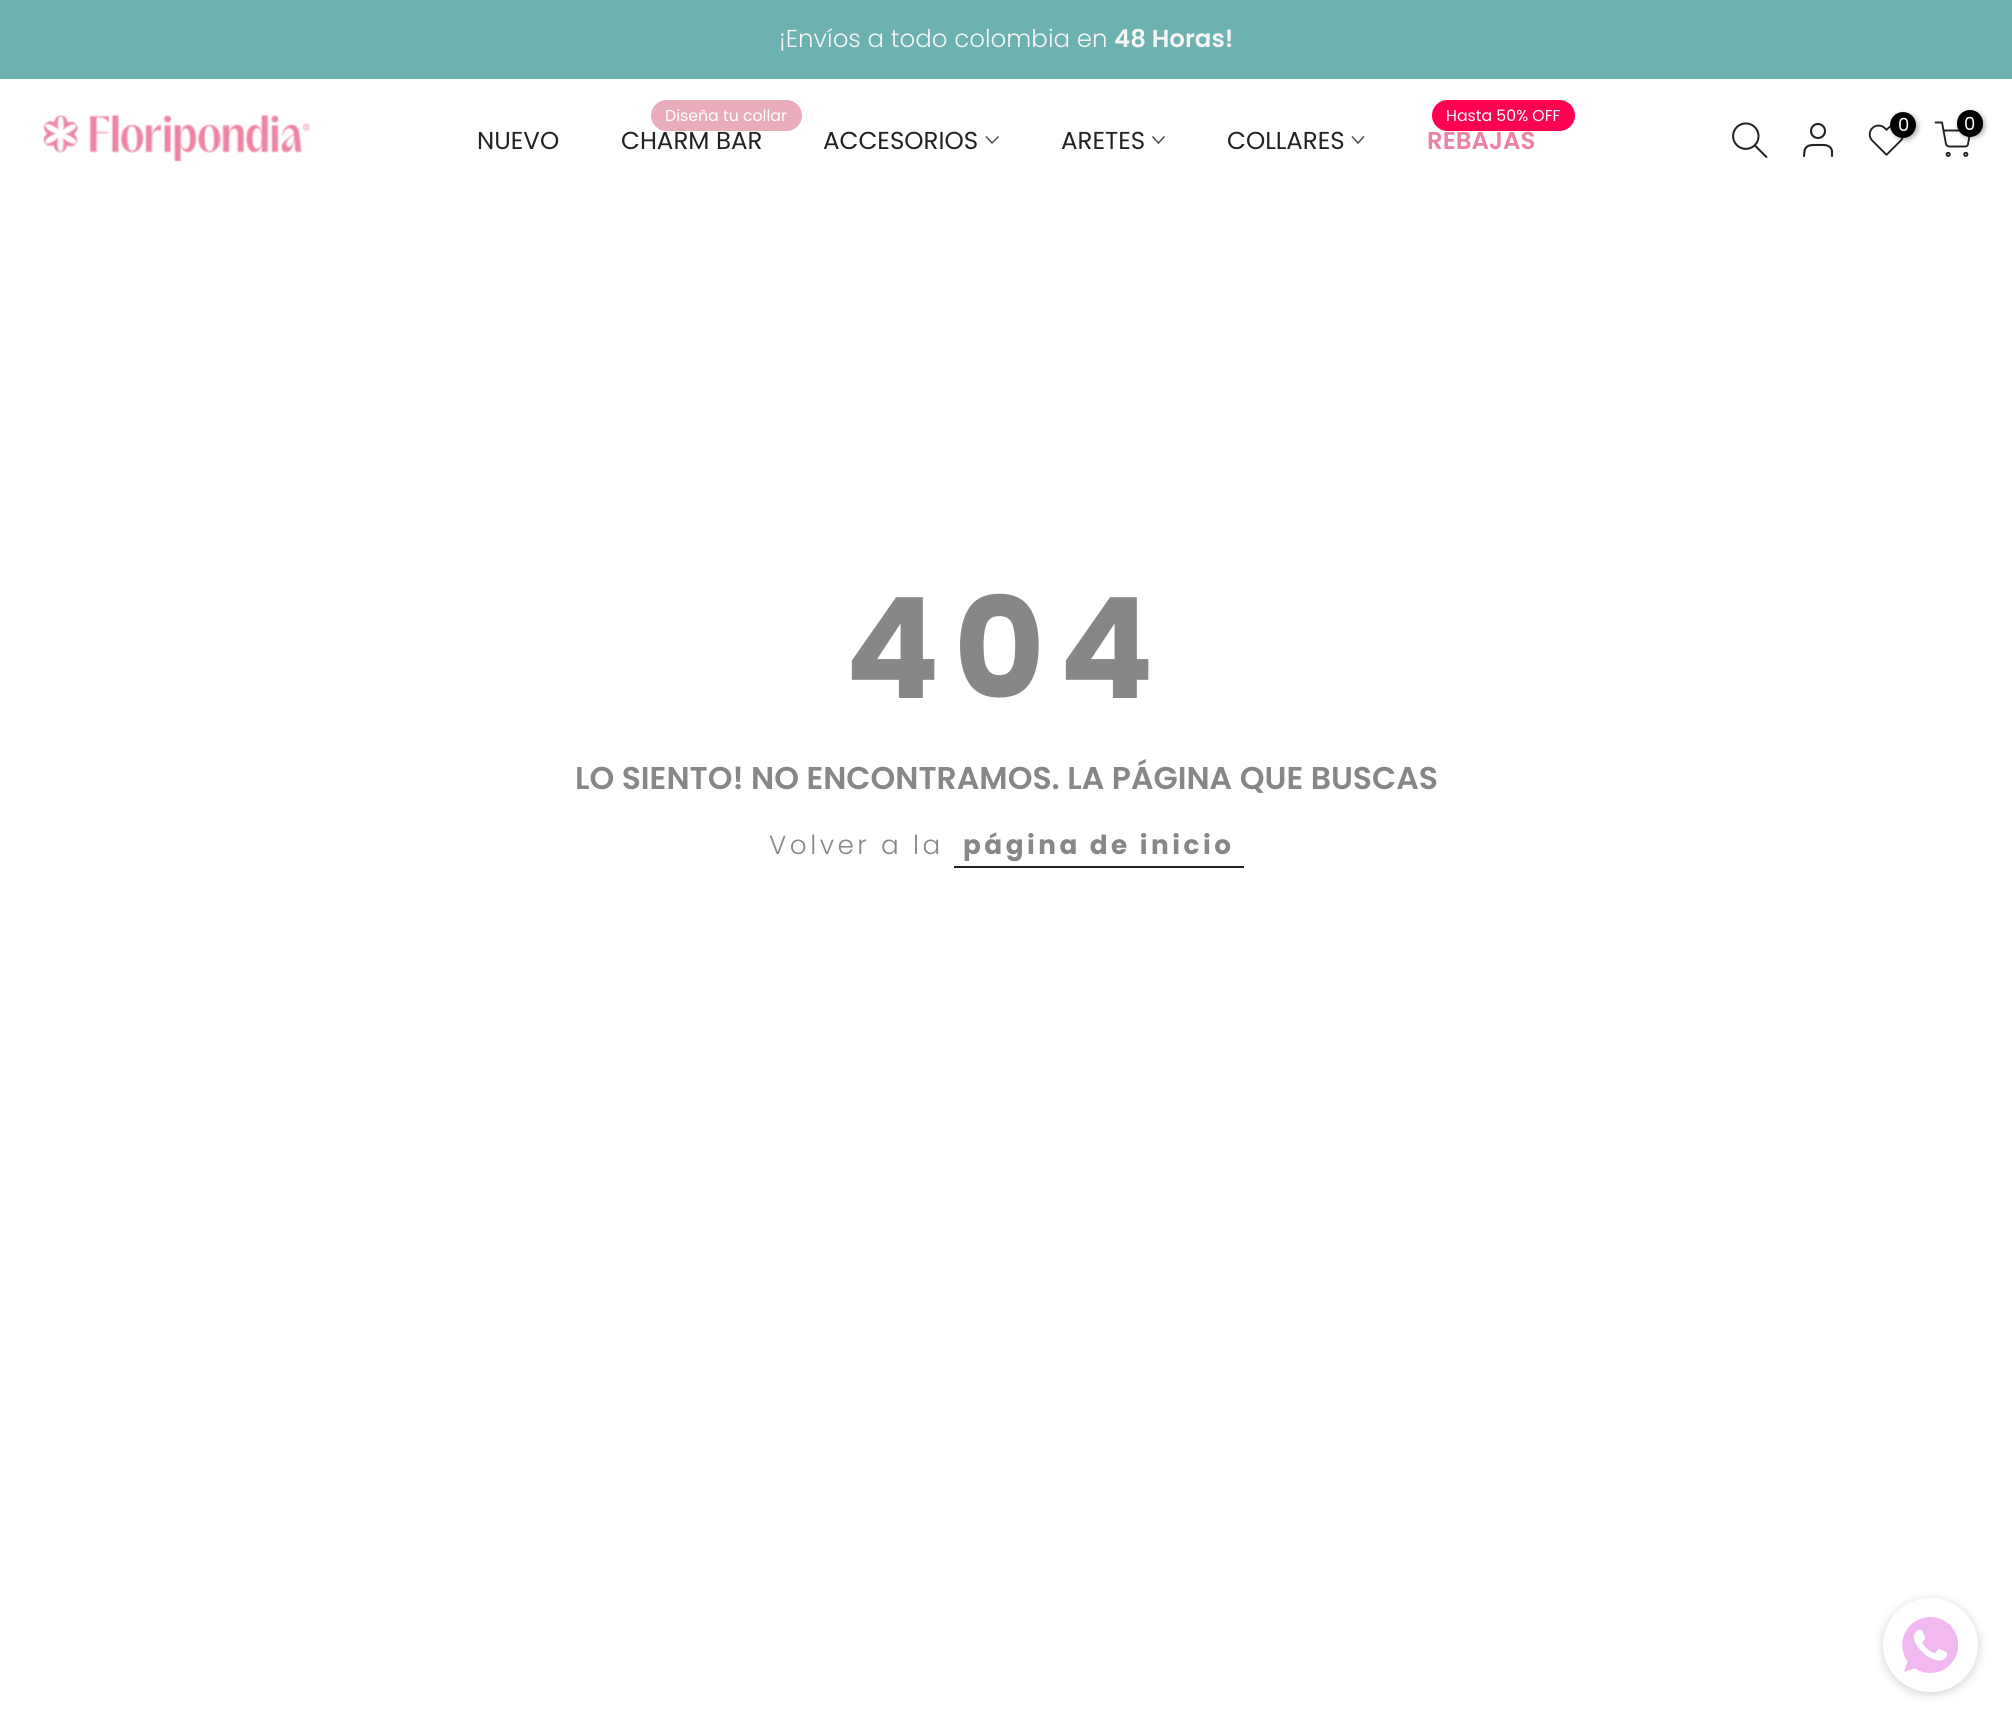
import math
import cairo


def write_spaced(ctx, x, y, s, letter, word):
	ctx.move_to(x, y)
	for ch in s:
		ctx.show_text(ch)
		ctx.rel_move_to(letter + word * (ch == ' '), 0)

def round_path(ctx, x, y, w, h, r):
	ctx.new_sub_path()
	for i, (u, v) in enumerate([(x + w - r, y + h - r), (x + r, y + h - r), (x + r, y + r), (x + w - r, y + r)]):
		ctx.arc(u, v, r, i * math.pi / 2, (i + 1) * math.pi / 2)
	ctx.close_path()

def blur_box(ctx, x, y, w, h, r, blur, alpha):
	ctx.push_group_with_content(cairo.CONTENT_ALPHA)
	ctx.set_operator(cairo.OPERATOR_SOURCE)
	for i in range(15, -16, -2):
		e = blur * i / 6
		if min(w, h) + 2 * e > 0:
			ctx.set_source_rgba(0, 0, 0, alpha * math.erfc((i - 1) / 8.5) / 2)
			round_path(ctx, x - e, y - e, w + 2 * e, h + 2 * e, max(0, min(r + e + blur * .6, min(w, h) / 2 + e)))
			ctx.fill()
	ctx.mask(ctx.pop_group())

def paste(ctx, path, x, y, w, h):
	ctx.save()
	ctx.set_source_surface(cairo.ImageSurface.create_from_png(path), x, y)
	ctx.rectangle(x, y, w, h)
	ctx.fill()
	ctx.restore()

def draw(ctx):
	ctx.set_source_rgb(1, 1, 1)
	ctx.paint()
	ctx.set_source_rgb(0.427, 0.694, 0.694)
	ctx.rectangle(0, 0, 2012, 79)
	ctx.fill()
	ctx.select_font_face('Poppins Light')
	ctx.set_font_size(24.5)
	ctx.set_source_rgb(0.961, 0.961, 0.961)
	ctx.move_to(779, 47)
	ctx.show_text('¡Envíos a todo colombia en')
	ctx.select_font_face('Poppins SemiBold')
	ctx.move_to(1114, 47)
	ctx.show_text('48 Horas!')
	paste(ctx, 'media/1.png', 43, 114, 267, 48)
	ctx.select_font_face('Poppins')
	ctx.set_source_rgb(0.133, 0.133, 0.133)
	ctx.move_to(477, 149)
	ctx.show_text('NUEVO')
	ctx.set_source_rgb(0.914, 0.675, 0.733)
	round_path(ctx, 651, 100, 151, 31, 15.5)
	ctx.fill()
	ctx.set_font_size(15.75)
	ctx.set_source_rgb(1, 1, 1)
	ctx.move_to(665, 121)
	ctx.show_text('Diseña tu collar')
	ctx.set_font_size(24.5)
	ctx.set_source_rgb(0.133, 0.133, 0.133)
	ctx.move_to(621, 149)
	ctx.show_text('CHARM BAR')
	ctx.move_to(823, 149)
	ctx.show_text('ACCESORIOS')
	ctx.new_path()
	ctx.move_to(998, 137)
	ctx.line_to(992, 143)
	ctx.line_to(986.5, 137)
	ctx.set_source_rgb(0.306, 0.306, 0.306)
	ctx.set_line_width(1.5)
	ctx.set_line_cap(cairo.LINE_CAP_SQUARE)
	ctx.stroke()
	ctx.set_source_rgb(0.133, 0.133, 0.133)
	ctx.move_to(1061, 149)
	ctx.show_text('ARETES')
	ctx.new_path()
	ctx.move_to(1164, 137)
	ctx.line_to(1158.5, 143)
	ctx.line_to(1153, 137)
	ctx.set_source_rgb(0.306, 0.306, 0.306)
	ctx.stroke()
	ctx.set_source_rgb(0.133, 0.133, 0.133)
	ctx.move_to(1227, 149)
	ctx.show_text('COLLARES')
	ctx.new_path()
	ctx.move_to(1363.5, 137)
	ctx.line_to(1358, 143)
	ctx.line_to(1352.5, 137)
	ctx.set_source_rgb(0.306, 0.306, 0.306)
	ctx.stroke()
	ctx.set_source_rgb(1, 0, 0.318)
	round_path(ctx, 1432, 100, 143, 31, 15.5)
	ctx.fill()
	ctx.set_font_size(15.75)
	ctx.set_source_rgb(1, 1, 1)
	ctx.move_to(1446, 121)
	ctx.show_text('Hasta 50% OFF')
	ctx.select_font_face('Poppins SemiBold')
	ctx.set_font_size(24.5)
	ctx.set_source_rgb(0.933, 0.51, 0.643)
	ctx.move_to(1427, 149)
	ctx.show_text('REBAJAS')
	paste(ctx, 'media/2.png', 1732, 122, 36, 36)
	ctx.arc(1818, 131, 7, 0, 2 * math.pi)
	ctx.set_source_rgb(0.133, 0.133, 0.133)
	ctx.set_line_width(2.1)
	ctx.set_line_cap(cairo.LINE_CAP_BUTT)
	ctx.stroke()
	ctx.new_path()
	ctx.move_to(1832, 156)
	ctx.line_to(1832, 151)
	ctx.curve_to(1830.5, 144, 1823.5, 145, 1818, 145)
	ctx.curve_to(1813, 145, 1806, 144, 1804.5, 151)
	ctx.line_to(1804, 156)
	ctx.set_line_cap(cairo.LINE_CAP_ROUND)
	ctx.set_line_join(cairo.LINE_JOIN_ROUND)
	ctx.stroke()
	paste(ctx, 'media/3.png', 1868, 124, 36, 32)
	ctx.set_source_rgb(0, 0, 0)
	blur_box(ctx, 1892, 114, 26, 26, 13, 2.5, 0.3)
	ctx.set_source_rgb(0, 0, 0)
	ctx.arc(1903, 125, 13, 0, 2 * math.pi)
	ctx.fill()
	ctx.select_font_face('Poppins')
	ctx.set_font_size(18)
	ctx.set_source_rgb(1, 1, 1)
	ctx.move_to(1898, 131)
	ctx.show_text('0')
	ctx.new_path()
	ctx.move_to(1935.5, 122.5)
	ctx.line_to(1942, 122.5)
	ctx.line_to(1946, 144)
	ctx.curve_to(1946.5, 145.5, 1947.5, 146.5, 1949.5, 146.5)
	ctx.line_to(1965, 146.5)
	ctx.curve_to(1966.5, 146.5, 1968, 145.5, 1968, 144)
	ctx.line_to(1970.5, 130.5)
	ctx.line_to(1943.5, 130.5)
	ctx.set_source_rgb(0.133, 0.133, 0.133)
	ctx.set_line_width(1.9)
	ctx.stroke()
	ctx.set_source_rgb(0, 0, 0)
	blur_box(ctx, 1958, 112, 27, 26, 13, 2.5, 0.3)
	ctx.set_source_rgb(0, 0, 0)
	round_path(ctx, 1957, 110, 26, 27, 13)
	ctx.fill()
	ctx.set_source_rgb(1, 1, 1)
	ctx.move_to(1964, 130)
	ctx.show_text('0')
	ctx.new_path()
	ctx.arc(1948.2, 154.4, 1.6, 0, 2 * math.pi)
	ctx.set_source_rgb(0.133, 0.133, 0.133)
	ctx.set_line_cap(cairo.LINE_CAP_BUTT)
	ctx.set_line_join(cairo.LINE_JOIN_MITER)
	ctx.stroke()
	ctx.arc(1965.8, 154.4, 1.6, 0, 2 * math.pi)
	ctx.stroke()
	ctx.select_font_face('Poppins', cairo.FONT_SLANT_NORMAL, cairo.FONT_WEIGHT_BOLD)
	ctx.set_font_size(140)
	ctx.set_source_rgb(0.529, 0.529, 0.529)
	write_spaced(ctx, 845, 698, '404', 14, 0)
	ctx.select_font_face('Poppins SemiBold')
	ctx.set_font_size(31.5)
	ctx.move_to(575, 789)
	ctx.show_text('LO SIENTO! NO ENCONTRAMOS. LA PÁGINA QUE BUSCAS')
	ctx.select_font_face('Poppins Light')
	ctx.set_font_size(26.25)
	write_spaced(ctx, 769, 854, 'Volver a la', 3.5, 0)
	ctx.select_font_face('Poppins', cairo.FONT_SLANT_NORMAL, cairo.FONT_WEIGHT_BOLD)
	write_spaced(ctx, 963, 854, 'página de inicio', 3.5, 0)
	ctx.set_source_rgb(0.133, 0.133, 0.133)
	ctx.rectangle(954, 866, 290, 2)
	ctx.fill()
	ctx.set_source_rgb(0.106, 0.106, 0.106)
	blur_box(ctx, 1883, 1600, 95, 94, 47, 5, 0.2)
	ctx.set_source_rgb(1, 1, 1)
	round_path(ctx, 1884, 1599, 93, 92, 46)
	ctx.fill_preserve()
	ctx.set_line_width(2)
	ctx.stroke()
	paste(ctx, 'media/4.png', 1902, 1617, 56, 56)


surface = cairo.ImageSurface(cairo.FORMAT_RGB24, 2012, 1726)
ctx = cairo.Context(surface)
options = cairo.FontOptions()
options.set_hint_metrics(cairo.HINT_METRICS_OFF)
options.set_hint_style(cairo.HINT_STYLE_NONE)
ctx.set_font_options(options)
ctx.set_miter_limit(4)
draw(ctx)
surface.write_to_png('image.png')
